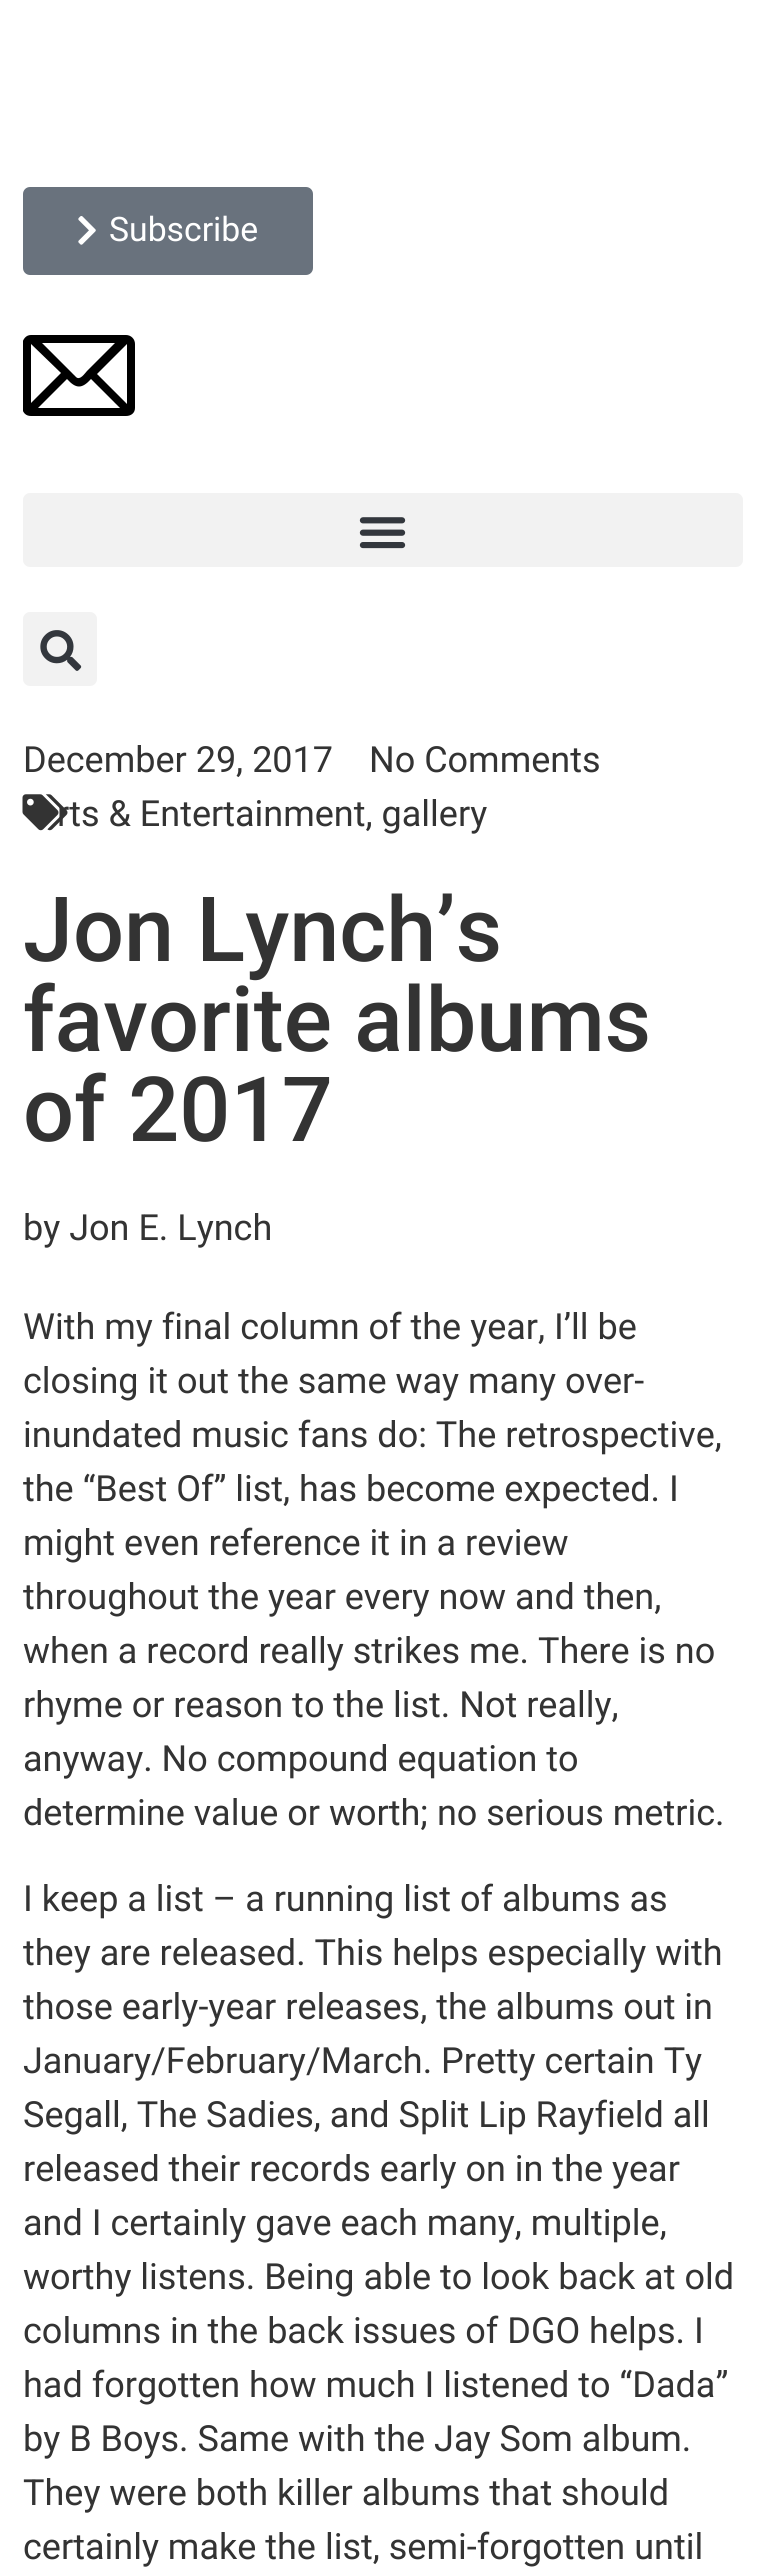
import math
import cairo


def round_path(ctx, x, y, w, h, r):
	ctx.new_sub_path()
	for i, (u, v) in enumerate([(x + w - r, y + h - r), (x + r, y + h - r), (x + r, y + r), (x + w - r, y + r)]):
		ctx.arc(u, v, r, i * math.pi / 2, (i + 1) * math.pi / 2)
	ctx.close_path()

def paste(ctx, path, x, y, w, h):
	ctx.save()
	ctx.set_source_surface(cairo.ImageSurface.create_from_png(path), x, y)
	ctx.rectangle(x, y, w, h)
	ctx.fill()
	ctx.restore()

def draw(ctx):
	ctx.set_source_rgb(1, 1, 1)
	ctx.paint()
	ctx.set_source_rgb(0.412, 0.447, 0.49)
	round_path(ctx, 23, 187, 290, 88, 7)
	ctx.fill()
	paste(ctx, 'media/1.png', 78, 216, 18, 29)
	ctx.select_font_face('Roboto')
	ctx.set_font_size(33.75)
	ctx.set_source_rgb(1, 1, 1)
	ctx.move_to(109, 241)
	ctx.show_text('Subscribe')
	ctx.save()
	ctx.rectangle(23, 320, 112, 112)
	ctx.clip()
	ctx.set_source_rgb(0, 0, 0)
	ctx.new_path()
	ctx.move_to(31, 416)
	ctx.curve_to(26, 416, 23, 413, 22, 408)
	ctx.line_to(22, 344)
	ctx.curve_to(23, 339, 26, 335, 31, 335)
	ctx.line_to(126, 335)
	ctx.curve_to(131, 335, 135, 339, 135, 344)
	ctx.line_to(135, 408)
	ctx.curve_to(135, 413, 131, 416, 126, 416)
	ctx.close_path()
	ctx.move_to(120, 408)
	ctx.line_to(91, 379)
	ctx.curve_to(82, 389, 76, 389, 67, 379)
	ctx.line_to(38, 408)
	ctx.close_path()
	ctx.move_to(127, 404)
	ctx.line_to(127, 344)
	ctx.line_to(97, 374)
	ctx.close_path()
	ctx.move_to(31, 403)
	ctx.line_to(61, 373)
	ctx.line_to(31, 344)
	ctx.close_path()
	ctx.move_to(76, 377)
	ctx.curve_to(80, 381, 85, 373, 87, 371)
	ctx.line_to(115, 343)
	ctx.line_to(42, 343)
	ctx.close_path()
	ctx.fill()
	ctx.restore()
	ctx.set_source_rgb(0.949, 0.949, 0.949)
	round_path(ctx, 23, 493, 720, 74, 7)
	ctx.fill()
	paste(ctx, 'media/2.png', 359, 517, 47, 32)
	round_path(ctx, 23, 612, 74, 74, 7)
	ctx.fill()
	paste(ctx, 'media/3.png', 40, 630, 42, 41)
	ctx.set_font_size(36)
	ctx.set_source_rgb(0.2, 0.2, 0.2)
	for x, y, s in [
		(23, 772, 'December 29, 2017'),
		(369, 772, 'No Comments'),
		(57, 826, 'rts & Entertainment, gallery'),
	]:
		ctx.move_to(x, y)
		ctx.show_text(s)
	paste(ctx, 'media/4.png', 22, 794, 46, 37)
	ctx.select_font_face('Roboto Medium')
	ctx.set_font_size(90)
	for x, y, s in [
		(23, 961, 'Jon Lynch’s'),
		(23, 1051, 'favorite albums'),
		(23, 1141, 'of 2017'),
	]:
		ctx.move_to(x, y)
		ctx.show_text(s)
	ctx.select_font_face('Roboto')
	ctx.set_font_size(36)
	for x, y, s in [
		(23, 1240, 'by Jon E. Lynch'),
		(23, 1339, 'With my final column of the year, I’ll be'),
		(23, 1393, 'closing it out the same way many over-'),
		(23, 1447, 'inundated music fans do: The retrospective,'),
		(23, 1501, 'the “Best Of” list, has become expected. I'),
		(23, 1555, 'might even reference it in a review'),
		(23, 1609, 'throughout the year every now and then,'),
		(23, 1663, 'when a record really strikes me. There is no'),
		(23, 1717, 'rhyme or reason to the list. Not really,'),
		(23, 1771, 'anyway. No compound equation to'),
		(23, 1825, 'determine value or worth; no serious metric.'),
		(23, 1911, 'I keep a list – a running list of albums as'),
		(23, 1965, 'they are released. This helps especially with'),
		(23, 2019, 'those early-year releases, the albums out in'),
		(23, 2073, 'January/February/March. Pretty certain Ty'),
		(23, 2127, 'Segall, The Sadies, and Split Lip Rayfield all'),
		(23, 2181, 'released their records early on in the year'),
		(23, 2235, 'and I certainly gave each many, multiple,'),
		(23, 2289, 'worthy listens. Being able to look back at old'),
		(23, 2343, 'columns in the back issues of DGO helps. I'),
		(23, 2397, 'had forgotten how much I listened to “Dada”'),
		(23, 2451, 'by B Boys. Same with the Jay Som album.'),
		(23, 2505, 'They were both killer albums that should'),
		(23, 2559, 'certainly make the list, semi-forgotten until'),
	]:
		ctx.move_to(x, y)
		ctx.show_text(s)


surface = cairo.ImageSurface(cairo.FORMAT_RGB24, 763, 2570)
ctx = cairo.Context(surface)
options = cairo.FontOptions()
options.set_hint_metrics(cairo.HINT_METRICS_OFF)
options.set_hint_style(cairo.HINT_STYLE_NONE)
ctx.set_font_options(options)
ctx.set_miter_limit(4)
draw(ctx)
surface.write_to_png('image.png')
